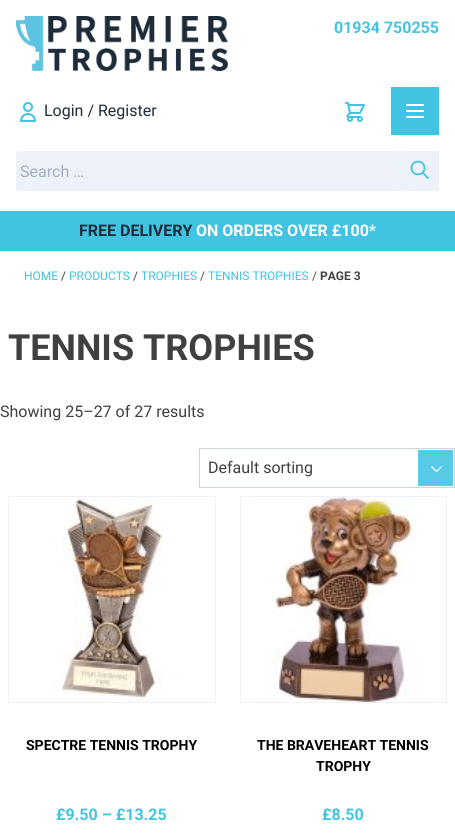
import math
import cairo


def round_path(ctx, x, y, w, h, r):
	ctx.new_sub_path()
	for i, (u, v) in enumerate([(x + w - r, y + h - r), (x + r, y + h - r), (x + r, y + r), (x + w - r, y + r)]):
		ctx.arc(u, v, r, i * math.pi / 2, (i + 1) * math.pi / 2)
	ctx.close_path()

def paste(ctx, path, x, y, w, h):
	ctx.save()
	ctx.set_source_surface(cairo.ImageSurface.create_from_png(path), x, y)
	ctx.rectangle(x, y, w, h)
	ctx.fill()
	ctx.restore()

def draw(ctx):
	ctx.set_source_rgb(1, 1, 1)
	ctx.paint()
	paste(ctx, 'media/1.png', 16, 16, 212, 55)
	ctx.select_font_face('Roboto', cairo.FONT_SLANT_NORMAL, cairo.FONT_WEIGHT_BOLD)
	ctx.set_font_size(16)
	ctx.set_source_rgb(0.255, 0.765, 0.886)
	ctx.move_to(334, 33)
	ctx.show_text('01934 750255')
	paste(ctx, 'media/2.png', 20, 102, 16, 20)
	ctx.select_font_face('Roboto')
	ctx.set_source_rgb(0.118, 0.173, 0.224)
	ctx.move_to(44, 116)
	ctx.show_text('Login / Register')
	paste(ctx, 'media/3.png', 345, 102, 20, 20)
	ctx.set_source_rgb(0.255, 0.765, 0.886)
	ctx.rectangle(391, 87, 48, 48)
	ctx.fill()
	ctx.new_path()
	ctx.move_to(407, 105)
	ctx.line_to(423, 105)
	ctx.move_to(407, 111)
	ctx.line_to(423, 111)
	ctx.move_to(407, 117)
	ctx.line_to(423, 117)
	ctx.set_source_rgb(1, 1, 1)
	ctx.set_line_cap(cairo.LINE_CAP_ROUND)
	ctx.set_line_join(cairo.LINE_JOIN_ROUND)
	ctx.stroke()
	ctx.set_source_rgb(0.929, 0.949, 0.969)
	round_path(ctx, 16, 151, 385, 40, 3)
	ctx.fill()
	ctx.set_source_rgb(0.627, 0.682, 0.753)
	ctx.move_to(20, 177)
	ctx.show_text('Search …')
	ctx.set_source_rgb(0.929, 0.949, 0.969)
	ctx.rectangle(401, 151, 38, 40)
	ctx.fill()
	ctx.new_path()
	ctx.move_to(428, 178)
	ctx.line_to(422.5, 172.5)
	ctx.move_to(424.5, 168)
	ctx.curve_to(424.5, 176.5, 411.5, 176.5, 411.5, 168)
	ctx.curve_to(411.5, 159.5, 424.5, 159.5, 424.5, 168)
	ctx.close_path()
	ctx.set_source_rgb(0.255, 0.765, 0.886)
	ctx.set_line_width(1.8)
	ctx.stroke()
	ctx.rectangle(0, 211, 455, 40)
	ctx.fill()
	ctx.select_font_face('Roboto', cairo.FONT_SLANT_NORMAL, cairo.FONT_WEIGHT_BOLD)
	ctx.set_source_rgb(0.118, 0.173, 0.224)
	ctx.move_to(79, 236)
	ctx.show_text('FREE DELIVERY')
	ctx.set_source_rgb(1, 1, 1)
	ctx.move_to(196, 236)
	ctx.show_text('ON ORDERS OVER £100*')
	ctx.select_font_face('Roboto')
	ctx.set_font_size(12)
	ctx.set_source_rgb(0.255, 0.765, 0.886)
	ctx.move_to(24, 280)
	ctx.show_text('HOME')
	ctx.set_source_rgb(0.251, 0.251, 0.251)
	ctx.move_to(61, 280)
	ctx.show_text('/')
	ctx.set_source_rgb(0.255, 0.765, 0.886)
	ctx.move_to(69, 280)
	ctx.show_text('PRODUCTS')
	ctx.set_source_rgb(0.251, 0.251, 0.251)
	ctx.move_to(133, 280)
	ctx.show_text('/')
	ctx.set_source_rgb(0.255, 0.765, 0.886)
	ctx.move_to(141, 280)
	ctx.show_text('TROPHIES')
	ctx.set_source_rgb(0.251, 0.251, 0.251)
	ctx.move_to(200, 280)
	ctx.show_text('/')
	ctx.set_source_rgb(0.255, 0.765, 0.886)
	ctx.move_to(208, 280)
	ctx.show_text('TENNIS TROPHIES')
	ctx.set_source_rgb(0.251, 0.251, 0.251)
	ctx.move_to(312, 280)
	ctx.show_text('/')
	ctx.select_font_face('Roboto', cairo.FONT_SLANT_NORMAL, cairo.FONT_WEIGHT_BOLD)
	ctx.move_to(320, 280)
	ctx.show_text('PAGE 3')
	ctx.set_font_size(36)
	ctx.move_to(8, 360)
	ctx.show_text('TENNIS TROPHIES')
	ctx.select_font_face('Roboto')
	ctx.set_font_size(16)
	ctx.move_to(0, 417)
	ctx.show_text('Showing 25–27 of 27 results')
	paste(ctx, 'media/4.png', 418, 450, 35, 36)
	ctx.rectangle(199.5, 448.5, 255, 39)
	ctx.set_source_rgb(0.796, 0.835, 0.878)
	ctx.set_line_width(1)
	ctx.set_line_cap(cairo.LINE_CAP_BUTT)
	ctx.set_line_join(cairo.LINE_JOIN_MITER)
	ctx.stroke()
	ctx.set_source_rgb(0.251, 0.251, 0.251)
	ctx.move_to(208, 473)
	ctx.show_text('Default sorting')
	ctx.rectangle(8.5, 496.5, 207, 206)
	ctx.set_source_rgb(0.929, 0.949, 0.969)
	ctx.stroke()
	paste(ctx, 'media/5.png', 53, 497, 110, 205)
	ctx.select_font_face('Roboto', cairo.FONT_SLANT_NORMAL, cairo.FONT_WEIGHT_BOLD)
	ctx.set_font_size(14)
	ctx.set_source_rgb(0, 0, 0)
	ctx.move_to(26, 750)
	ctx.show_text('SPECTRE TENNIS TROPHY')
	ctx.set_font_size(16)
	ctx.set_source_rgb(0.255, 0.765, 0.886)
	ctx.move_to(56, 820)
	ctx.show_text('£9.50 – £13.25')
	ctx.rectangle(240.5, 496.5, 206, 206)
	ctx.set_source_rgb(0.929, 0.949, 0.969)
	ctx.stroke()
	paste(ctx, 'media/6.png', 264, 497, 152, 205)
	ctx.set_font_size(14)
	ctx.set_source_rgb(0, 0, 0)
	ctx.move_to(257, 750)
	ctx.show_text('THE BRAVEHEART TENNIS')
	ctx.move_to(316, 771)
	ctx.show_text('TROPHY')
	ctx.set_font_size(16)
	ctx.set_source_rgb(0.255, 0.765, 0.886)
	ctx.move_to(322, 820)
	ctx.show_text('£8.50')


surface = cairo.ImageSurface(cairo.FORMAT_RGB24, 455, 839)
ctx = cairo.Context(surface)
options = cairo.FontOptions()
options.set_hint_metrics(cairo.HINT_METRICS_OFF)
options.set_hint_style(cairo.HINT_STYLE_NONE)
ctx.set_font_options(options)
ctx.set_miter_limit(4)
draw(ctx)
surface.write_to_png('image.png')
